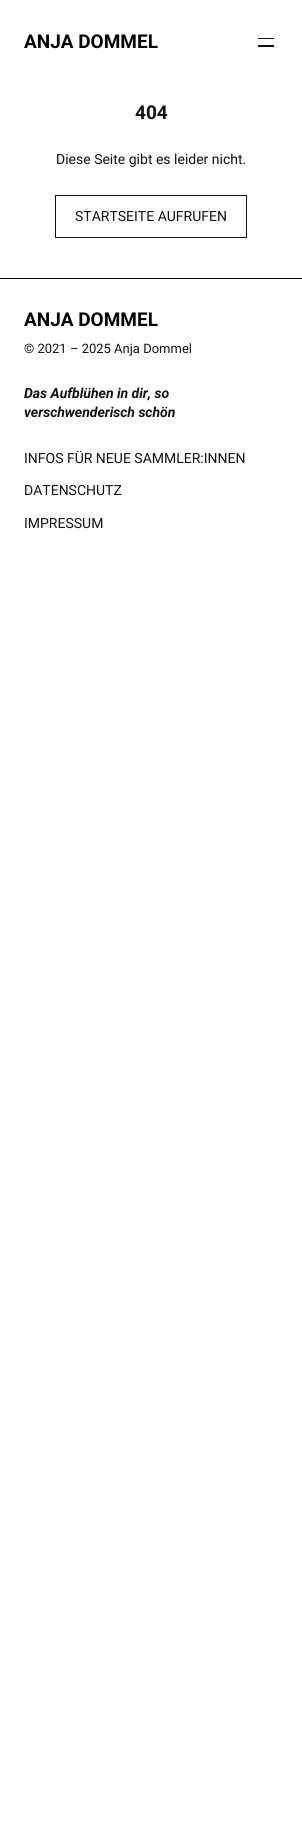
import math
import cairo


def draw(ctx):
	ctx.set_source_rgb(1, 1, 1)
	ctx.paint()
	ctx.select_font_face('Roboto', cairo.FONT_SLANT_NORMAL, cairo.FONT_WEIGHT_BOLD)
	ctx.set_font_size(19)
	ctx.set_source_rgb(0, 0, 0)
	ctx.move_to(24, 48)
	ctx.show_text('ANJA DOMMEL')
	ctx.set_source_rgb(0.067, 0.067, 0.067)
	ctx.rectangle(258, 38, 16, 1)
	ctx.fill()
	ctx.rectangle(258, 45, 16, 2)
	ctx.fill()
	ctx.move_to(135, 119)
	ctx.show_text('404')
	ctx.select_font_face('Roboto')
	ctx.set_font_size(14)
	ctx.move_to(56, 164)
	ctx.show_text('Diese Seite gibt es leider nicht.')
	ctx.rectangle(55.5, 195.5, 191, 42)
	ctx.set_line_width(1)
	ctx.stroke()
	ctx.move_to(75, 221)
	ctx.show_text('STARTSEITE AUFRUFEN')
	ctx.set_source_rgb(0, 0, 0)
	ctx.rectangle(0, 278, 302, 1)
	ctx.fill()
	ctx.select_font_face('Roboto', cairo.FONT_SLANT_NORMAL, cairo.FONT_WEIGHT_BOLD)
	ctx.set_font_size(19)
	ctx.move_to(24, 326)
	ctx.show_text('ANJA DOMMEL')
	ctx.select_font_face('Roboto')
	ctx.set_font_size(13)
	ctx.set_source_rgb(0.067, 0.067, 0.067)
	ctx.move_to(24, 353)
	ctx.show_text('© 2021 – 2025 Anja Dommel')
	ctx.select_font_face('Roboto', cairo.FONT_SLANT_ITALIC, cairo.FONT_WEIGHT_BOLD)
	ctx.set_font_size(14)
	ctx.move_to(24, 398)
	ctx.show_text('Das Aufblühen in dir, so')
	ctx.move_to(24, 417)
	ctx.show_text('verschwenderisch schön')
	ctx.select_font_face('Roboto')
	for x, y, s in [
		(24, 463, 'INFOS FÜR NEUE SAMMLER:INNEN'),
		(24, 495, 'DATENSCHUTZ'),
		(24, 528, 'IMPRESSUM'),
	]:
		ctx.move_to(x, y)
		ctx.show_text(s)


surface = cairo.ImageSurface(cairo.FORMAT_RGB24, 302, 1833)
ctx = cairo.Context(surface)
options = cairo.FontOptions()
options.set_hint_metrics(cairo.HINT_METRICS_OFF)
options.set_hint_style(cairo.HINT_STYLE_NONE)
ctx.set_font_options(options)
ctx.set_miter_limit(4)
draw(ctx)
surface.write_to_png('image.png')
